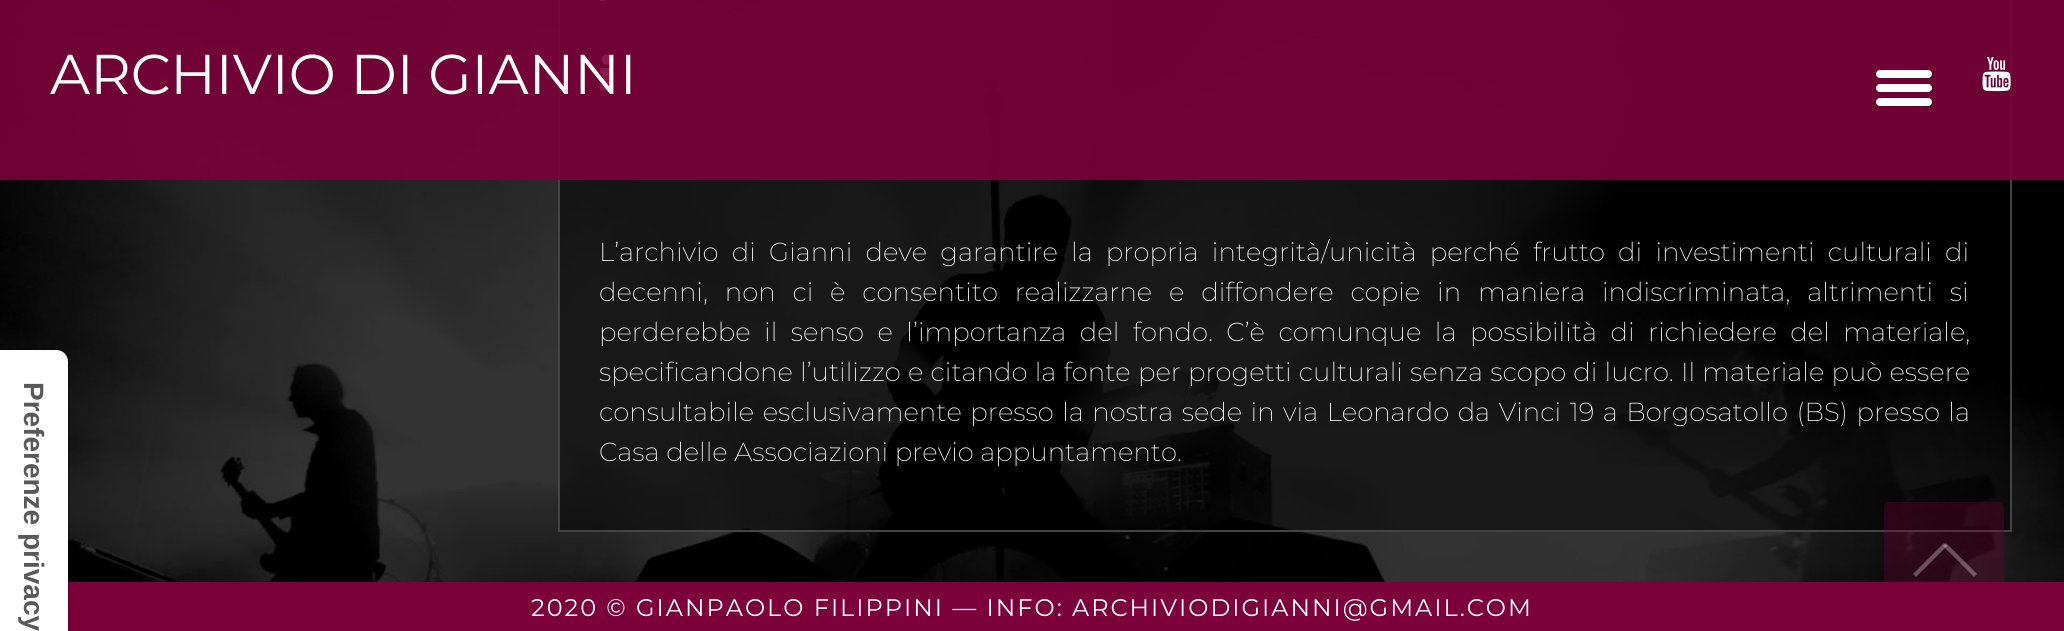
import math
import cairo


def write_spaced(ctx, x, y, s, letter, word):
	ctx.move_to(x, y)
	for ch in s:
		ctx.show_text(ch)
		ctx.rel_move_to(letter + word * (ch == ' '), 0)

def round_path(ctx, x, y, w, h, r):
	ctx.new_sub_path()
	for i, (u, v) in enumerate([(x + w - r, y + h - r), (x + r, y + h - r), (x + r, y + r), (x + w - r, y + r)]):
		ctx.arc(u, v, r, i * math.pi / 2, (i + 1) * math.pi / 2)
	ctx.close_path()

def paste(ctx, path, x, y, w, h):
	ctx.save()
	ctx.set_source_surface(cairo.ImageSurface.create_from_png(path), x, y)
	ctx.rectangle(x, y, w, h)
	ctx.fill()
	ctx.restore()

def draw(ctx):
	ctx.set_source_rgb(1, 1, 1)
	ctx.paint()
	paste(ctx, 'media/1.png', 0, 0, 2064, 582)
	ctx.set_source_rgba(0, 0, 0, 0.5)
	ctx.rectangle(559, -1, 1452, 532)
	ctx.fill_preserve()
	ctx.set_source_rgb(0.263, 0.271, 0.263)
	ctx.stroke()
	ctx.set_source_rgb(0.486, 0, 0.227)
	ctx.rectangle(68, 582, 1996, 49)
	ctx.fill()
	ctx.set_source_rgba(0.486, 0, 0.227, 0.3)
	round_path(ctx, 1884, 502, 120, 110, 6)
	ctx.fill()
	ctx.set_source_rgba(1, 1, 1, 0.3)
	ctx.new_path()
	ctx.move_to(1913, 574)
	ctx.line_to(1944, 543)
	ctx.line_to(1947, 546)
	ctx.line_to(1916, 577)
	ctx.close_path()
	ctx.fill()
	ctx.new_path()
	ctx.move_to(1946, 543)
	ctx.line_to(1977, 574)
	ctx.line_to(1974, 577)
	ctx.line_to(1943, 546)
	ctx.close_path()
	ctx.fill()
	paste(ctx, 'media/3.png', 600, 0, 7, 1)
	paste(ctx, 'media/4.png', 600, 54, 14, 37)
	ctx.set_source_rgba(0.486, 0, 0.227, 0.9)
	ctx.rectangle(0, 0, 2064, 180)
	ctx.fill()
	ctx.set_source_rgb(1, 1, 1)
	round_path(ctx, 1876, 70, 56, 8, 4)
	ctx.fill()
	round_path(ctx, 1876, 84, 56, 8, 4)
	ctx.fill()
	round_path(ctx, 1876, 98, 56, 8, 4)
	ctx.fill()
	paste(ctx, 'media/2.png', 1982, 57, 29, 35)
	ctx.select_font_face('Montserrat')
	ctx.set_font_size(56)
	ctx.move_to(50, 94)
	ctx.show_text('ARCHIVIO DI GIANNI')
	ctx.select_font_face('Montserrat ExtraLight')
	ctx.set_font_size(26)
	write_spaced(ctx, 599, 261, 'L’archivio di Gianni deve garantire la propria integrità/unicità perché frutto di investimenti culturali di', 0, 6.6)
	write_spaced(ctx, 599, 301, 'decenni, non ci è consentito realizzarne e diffondere copie in maniera indiscriminata, altrimenti si', 0, 10.25)
	write_spaced(ctx, 599, 341, 'perderebbe il senso e l’importanza del fondo. C’è comunque la possibilità di richiedere del materiale,', 0, 6.9)
	write_spaced(ctx, 599, 381, 'specificandone l’utilizzo e citando la fonte per progetti culturali senza scopo di lucro. Il materiale può essere', 0, 0.6)
	write_spaced(ctx, 599, 421, 'consultabile esclusivamente presso la nostra sede in via Leonardo da Vinci 19 a Borgosatollo (BS) presso la', 0, 1.9)
	ctx.move_to(599, 461)
	ctx.show_text('Casa delle Associazioni previo appuntamento.')
	ctx.new_path()
	ctx.move_to(69, 362)
	ctx.line_to(69, 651)
	ctx.curve_to(69, 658, 63, 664, 56, 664)
	ctx.line_to(-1, 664)
	ctx.line_to(-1, 349)
	ctx.line_to(56, 349)
	ctx.curve_to(63, 349, 69, 355, 69, 362)
	ctx.close_path()
	ctx.set_source_rgba(0, 0, 0, 0.15)
	ctx.stroke()
	ctx.set_source_rgb(1, 1, 1)
	ctx.new_path()
	ctx.move_to(68, 362)
	ctx.line_to(68, 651)
	ctx.curve_to(68, 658, 63, 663, 56, 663)
	ctx.line_to(0, 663)
	ctx.line_to(0, 350)
	ctx.line_to(56, 350)
	ctx.curve_to(63, 350, 68, 355, 68, 362)
	ctx.close_path()
	ctx.fill()
	ctx.select_font_face('Liberation Sans', cairo.FONT_SLANT_NORMAL, cairo.FONT_WEIGHT_BOLD)
	ctx.set_font_size(28)
	ctx.set_source_rgb(0.349, 0.349, 0.349)
	ctx.save()
	ctx.translate(24, 382)
	ctx.rotate(90 * math.pi / 180)
	ctx.move_to(0, 0)
	ctx.show_text('Preferenze privacy')
	ctx.restore()
	ctx.select_font_face('Montserrat')
	ctx.set_font_size(24)
	ctx.set_source_rgb(1, 1, 1)
	write_spaced(ctx, 531, 616, '2020 © GIANPAOLO FILIPPINI — INFO: ARCHIVIODIGIANNI@GMAIL.COM', 2, 0)


surface = cairo.ImageSurface(cairo.FORMAT_RGB24, 2064, 631)
ctx = cairo.Context(surface)
options = cairo.FontOptions()
options.set_hint_metrics(cairo.HINT_METRICS_OFF)
options.set_hint_style(cairo.HINT_STYLE_NONE)
ctx.set_font_options(options)
ctx.set_miter_limit(4)
draw(ctx)
surface.write_to_png('image.png')
